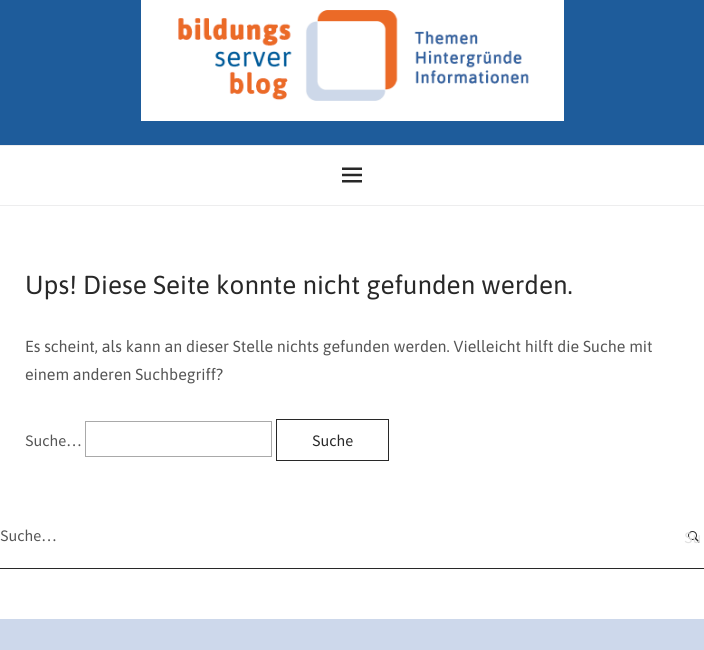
import math
import cairo


def paste(ctx, path, x, y, w, h):
	ctx.save()
	ctx.set_source_surface(cairo.ImageSurface.create_from_png(path), x, y)
	ctx.rectangle(x, y, w, h)
	ctx.fill()
	ctx.restore()

def draw(ctx):
	ctx.set_source_rgb(1, 1, 1)
	ctx.paint()
	ctx.set_source_rgb(0.118, 0.361, 0.608)
	ctx.rectangle(0, 0, 704, 145)
	ctx.fill()
	ctx.set_source_rgb(0.929, 0.929, 0.933)
	ctx.rectangle(0, 145, 704, 1)
	ctx.fill()
	ctx.set_source_rgb(1, 1, 1)
	ctx.rectangle(161, 10, 383, 91)
	ctx.fill()
	ctx.new_path()
	ctx.move_to(151, 0)
	ctx.line_to(554, 0)
	ctx.line_to(554, 111)
	ctx.line_to(151, 111)
	ctx.close_path()
	ctx.set_line_width(20)
	ctx.stroke()
	paste(ctx, 'media/1.png', 178, 10, 351, 91)
	ctx.set_source_rgb(0.929, 0.929, 0.933)
	ctx.rectangle(0, 205, 704, 1)
	ctx.fill()
	paste(ctx, 'media/2.png', 342, 167, 20, 16)
	ctx.select_font_face('Asap')
	ctx.set_font_size(26)
	ctx.set_source_rgb(0.157, 0.157, 0.157)
	ctx.move_to(25, 294)
	ctx.show_text('Ups! Diese Seite konnte nicht gefunden werden.')
	ctx.set_font_size(16)
	ctx.set_source_rgb(0.333, 0.333, 0.333)
	ctx.move_to(25, 352)
	ctx.show_text('Es scheint, als kann an dieser Stelle nichts gefunden werden. Vielleicht hilft die Suche mit')
	ctx.move_to(25, 380)
	ctx.show_text('einem anderen Suchbegriff?')
	ctx.select_font_face('Source Sans Pro')
	ctx.move_to(25, 446)
	ctx.show_text('Suche…')
	ctx.rectangle(85.5, 421.5, 186, 35)
	ctx.set_source_rgb(0.663, 0.663, 0.663)
	ctx.set_line_width(1)
	ctx.stroke()
	ctx.rectangle(276.5, 419.5, 112, 41)
	ctx.set_source_rgb(0.157, 0.157, 0.157)
	ctx.stroke()
	ctx.move_to(312, 446)
	ctx.show_text('Suche')
	ctx.set_source_rgb(0.333, 0.333, 0.333)
	ctx.move_to(0, 541)
	ctx.show_text('Suche…')
	paste(ctx, 'media/3.png', 688, 531, 12, 12)
	ctx.set_source_rgb(0.882, 0.882, 0.882)
	ctx.move_to(684, 543)
	ctx.show_text('Su')
	ctx.set_source_rgb(0.157, 0.157, 0.157)
	ctx.rectangle(0, 568, 704, 1)
	ctx.fill()
	ctx.set_source_rgb(0.804, 0.847, 0.918)
	ctx.rectangle(0, 619, 704, 31)
	ctx.fill()


surface = cairo.ImageSurface(cairo.FORMAT_RGB24, 704, 650)
ctx = cairo.Context(surface)
options = cairo.FontOptions()
options.set_hint_metrics(cairo.HINT_METRICS_OFF)
options.set_hint_style(cairo.HINT_STYLE_NONE)
ctx.set_font_options(options)
ctx.set_miter_limit(4)
draw(ctx)
surface.write_to_png('image.png')
